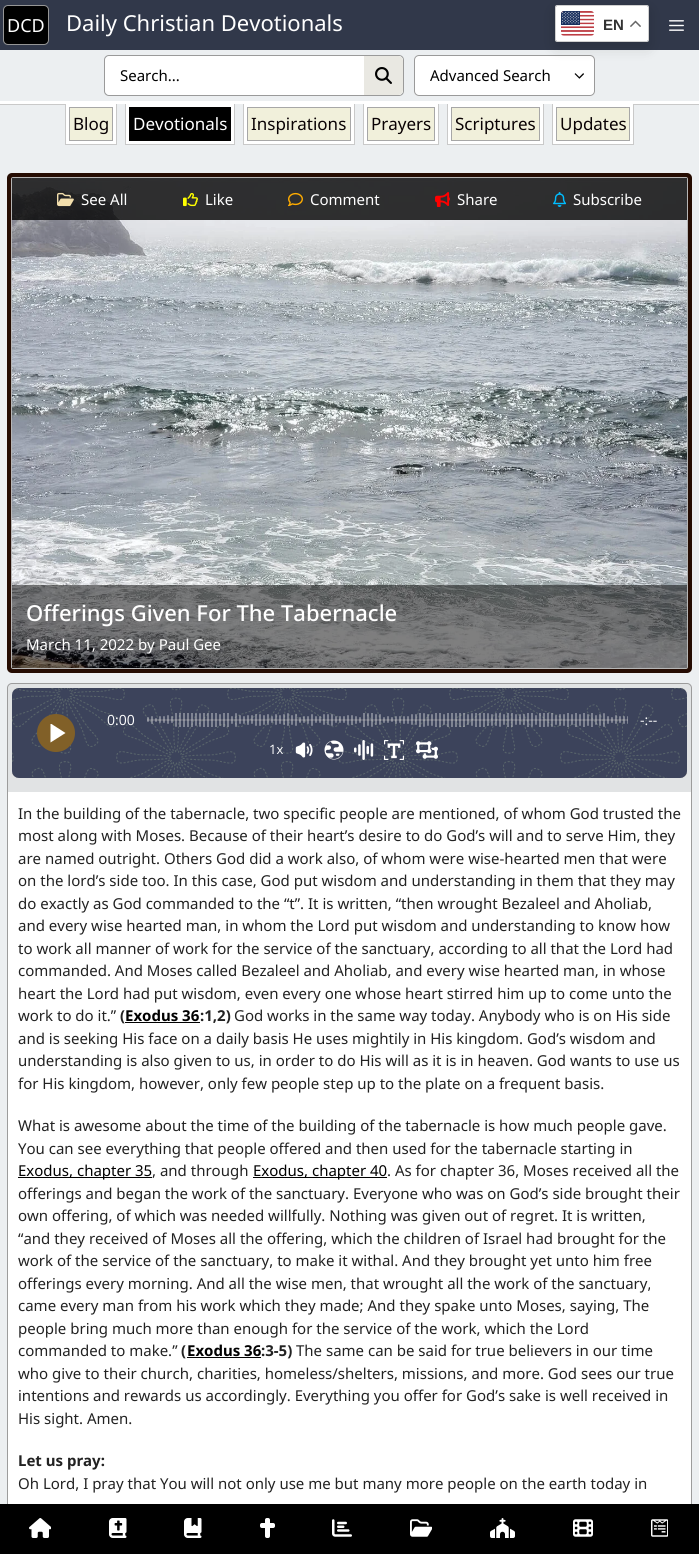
import math
import cairo


def round_path(ctx, x, y, w, h, r):
	ctx.new_sub_path()
	for i, (u, v) in enumerate([(x + w - r, y + h - r), (x + r, y + h - r), (x + r, y + r), (x + w - r, y + r)]):
		ctx.arc(u, v, r, i * math.pi / 2, (i + 1) * math.pi / 2)
	ctx.close_path()

def blur_box(ctx, x, y, w, h, r, blur, alpha):
	ctx.push_group_with_content(cairo.CONTENT_ALPHA)
	ctx.set_operator(cairo.OPERATOR_SOURCE)
	for i in range(15, -16, -2):
		e = blur * i / 6
		if min(w, h) + 2 * e > 0:
			ctx.set_source_rgba(0, 0, 0, alpha * math.erfc((i - 1) / 8.5) / 2)
			round_path(ctx, x - e, y - e, w + 2 * e, h + 2 * e, max(0, min(r + e + blur * .6, min(w, h) / 2 + e)))
			ctx.fill()
	ctx.mask(ctx.pop_group())

def paste(ctx, path, x, y, w, h):
	ctx.save()
	ctx.set_source_surface(cairo.ImageSurface.create_from_png(path), x, y)
	ctx.rectangle(x, y, w, h)
	ctx.fill()
	ctx.restore()

def draw(ctx):
	ctx.set_source_rgb(0.925, 0.937, 0.945)
	ctx.paint()
	ctx.set_source_rgb(0.192, 0.22, 0.29)
	ctx.rectangle(0, 0, 699, 50)
	ctx.fill()
	ctx.set_source_rgb(0, 0, 0)
	round_path(ctx, 3.5, 5.5, 45, 39, 4.5)
	ctx.fill_preserve()
	ctx.set_source_rgb(0.588, 0.588, 0.588)
	ctx.set_line_width(1)
	ctx.stroke()
	ctx.select_font_face('Noto Sans')
	ctx.set_font_size(18)
	ctx.set_source_rgb(1, 1, 1)
	ctx.move_to(7, 32)
	ctx.show_text('DCD')
	ctx.set_font_size(22)
	ctx.move_to(66, 31)
	ctx.show_text('Daily Christian Devotionals')
	paste(ctx, 'media/1.png', 669, 20, 15, 11)
	ctx.set_source_rgb(0.882, 0.89, 0.894)
	round_path(ctx, 7.5, 683.5, 684, 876, 4.5)
	ctx.fill_preserve()
	ctx.set_source_rgb(0.612, 0.612, 0.612)
	ctx.stroke()
	ctx.set_source_rgb(0, 0, 0)
	ctx.rectangle(0, 1504, 699, 50)
	ctx.fill()
	paste(ctx, 'media/2.png', 29, 1518, 22, 20)
	paste(ctx, 'media/3.png', 109, 1518, 18, 20)
	paste(ctx, 'media/4.png', 184, 1518, 18, 20)
	paste(ctx, 'media/5.png', 260, 1518, 15, 20)
	paste(ctx, 'media/6.png', 332, 1519, 20, 18)
	paste(ctx, 'media/7.png', 410, 1519, 22, 18)
	paste(ctx, 'media/8.png', 490, 1518, 25, 20)
	paste(ctx, 'media/9.png', 573, 1519, 20, 18)
	paste(ctx, 'media/10.png', 651, 1519, 17, 18)
	ctx.set_source_rgb(1, 1, 1)
	round_path(ctx, 414, 55, 181, 41, 5)
	ctx.fill()
	paste(ctx, 'media/14.png', 574, 73, 10, 6)
	round_path(ctx, 414.5, 55.5, 180, 40, 4.5)
	ctx.set_source_rgb(0.604, 0.604, 0.604)
	ctx.stroke()
	ctx.set_source_rgb(0, 0, 0)
	blur_box(ctx, 555, 10, 94, 37, 2, 7.5, 0.15)
	round_path(ctx, 555.5, 5.5, 93, 36, 1.5)
	ctx.set_source_rgb(0.816, 0.816, 0.816)
	ctx.stroke()
	ctx.set_source_rgb(1, 1, 1)
	round_path(ctx, 556, 6, 92, 35, 1)
	ctx.fill()
	paste(ctx, 'media/11.png', 561, 11, 33, 25)
	ctx.select_font_face('Liberation Sans', cairo.FONT_SLANT_NORMAL, cairo.FONT_WEIGHT_BOLD)
	ctx.set_font_size(15)
	ctx.set_source_rgb(0.2, 0.2, 0.2)
	ctx.move_to(603, 30)
	ctx.show_text('EN')
	paste(ctx, 'media/12.png', 630, 20, 11, 7)
	ctx.set_source_rgb(1, 1, 1)
	ctx.rectangle(0, 101, 699, 3)
	ctx.fill()
	round_path(ctx, 104.5, 55.5, 299, 40, 4.5)
	ctx.set_source_rgb(0.604, 0.604, 0.604)
	ctx.stroke()
	ctx.set_source_rgb(1, 1, 1)
	round_path(ctx, 105, 56, 298, 39, 5)
	ctx.fill()
	ctx.select_font_face('Noto Sans')
	ctx.set_source_rgb(0, 0, 0)
	ctx.move_to(120, 81)
	ctx.show_text('Search...')
	ctx.set_source_rgb(0.914, 0.91, 0.886)
	ctx.new_path()
	ctx.move_to(364, 56)
	ctx.line_to(398, 56)
	ctx.curve_to(401, 56, 403, 58, 403, 61)
	ctx.line_to(403, 90)
	ctx.curve_to(403, 93, 401, 95, 398, 95)
	ctx.line_to(364, 95)
	ctx.close_path()
	ctx.fill()
	paste(ctx, 'media/13.png', 375, 67, 17, 17)
	ctx.set_source_rgb(0, 0, 0)
	ctx.move_to(430, 81)
	ctx.show_text('Advanced Search')
	ctx.set_source_rgb(0.788, 0.788, 0.788)
	ctx.rectangle(0, 104, 699, 1)
	ctx.fill()
	ctx.set_source_rgb(0.925, 0.937, 0.945)
	ctx.rectangle(117, 104, 435, 1)
	ctx.fill()
	ctx.set_source_rgb(1, 1, 1)
	ctx.rectangle(66, 104, 50, 40)
	ctx.fill()
	ctx.set_source_rgb(0.788, 0.788, 0.788)
	ctx.rectangle(116, 104, 1, 41)
	ctx.rectangle(65, 144, 52, 1)
	ctx.rectangle(65, 104, 1, 41)
	ctx.fill()
	ctx.set_source_rgb(0.945, 0.941, 0.859)
	ctx.rectangle(69.5, 107.5, 43, 33)
	ctx.fill_preserve()
	ctx.set_source_rgb(0.655, 0.655, 0.655)
	ctx.stroke()
	ctx.set_font_size(17)
	ctx.set_source_rgb(0.039, 0.004, 0.012)
	ctx.move_to(73, 130)
	ctx.show_text('Blog')
	ctx.set_source_rgb(1, 1, 1)
	ctx.rectangle(126, 104, 108, 40)
	ctx.fill()
	ctx.set_source_rgb(0.788, 0.788, 0.788)
	ctx.rectangle(234, 104, 1, 41)
	ctx.rectangle(125, 144, 110, 1)
	ctx.rectangle(125, 104, 1, 41)
	ctx.fill()
	ctx.set_source_rgb(0, 0, 0)
	ctx.rectangle(129, 107, 102, 34)
	ctx.fill()
	ctx.set_source_rgb(1, 1, 1)
	ctx.move_to(133, 130)
	ctx.show_text('Devotionals')
	ctx.rectangle(244, 104, 110, 40)
	ctx.fill()
	ctx.set_source_rgb(0.788, 0.788, 0.788)
	ctx.rectangle(354, 104, 1, 41)
	ctx.rectangle(243, 144, 112, 1)
	ctx.rectangle(243, 104, 1, 41)
	ctx.fill()
	ctx.set_source_rgb(0.945, 0.941, 0.859)
	ctx.rectangle(247.5, 107.5, 103, 33)
	ctx.fill_preserve()
	ctx.set_source_rgb(0.655, 0.655, 0.655)
	ctx.stroke()
	ctx.set_source_rgb(0.039, 0.004, 0.012)
	ctx.move_to(251, 130)
	ctx.show_text('Inspirations')
	ctx.set_source_rgb(1, 1, 1)
	ctx.rectangle(364, 104, 74, 40)
	ctx.fill()
	ctx.set_source_rgb(0.788, 0.788, 0.788)
	ctx.rectangle(438, 104, 1, 41)
	ctx.rectangle(363, 144, 76, 1)
	ctx.rectangle(363, 104, 1, 41)
	ctx.fill()
	ctx.set_source_rgb(0.945, 0.941, 0.859)
	ctx.rectangle(367.5, 107.5, 67, 33)
	ctx.fill_preserve()
	ctx.set_source_rgb(0.655, 0.655, 0.655)
	ctx.stroke()
	ctx.set_source_rgb(0.039, 0.004, 0.012)
	ctx.move_to(371, 130)
	ctx.show_text('Prayers')
	ctx.set_source_rgb(1, 1, 1)
	ctx.rectangle(448, 104, 95, 40)
	ctx.fill()
	ctx.set_source_rgb(0.788, 0.788, 0.788)
	ctx.rectangle(543, 104, 1, 41)
	ctx.rectangle(447, 144, 97, 1)
	ctx.rectangle(447, 104, 1, 41)
	ctx.fill()
	ctx.set_source_rgb(0.945, 0.941, 0.859)
	ctx.rectangle(451.5, 107.5, 88, 33)
	ctx.fill_preserve()
	ctx.set_source_rgb(0.655, 0.655, 0.655)
	ctx.stroke()
	ctx.set_source_rgb(0.039, 0.004, 0.012)
	ctx.move_to(455, 130)
	ctx.show_text('Scriptures')
	ctx.set_source_rgb(1, 1, 1)
	ctx.rectangle(553, 104, 80, 40)
	ctx.fill()
	ctx.set_source_rgb(0.788, 0.788, 0.788)
	ctx.rectangle(633, 104, 1, 41)
	ctx.rectangle(552, 144, 82, 1)
	ctx.rectangle(552, 104, 1, 41)
	ctx.fill()
	ctx.set_source_rgb(0.945, 0.941, 0.859)
	ctx.rectangle(556.5, 107.5, 73, 33)
	ctx.fill_preserve()
	ctx.set_source_rgb(0.655, 0.655, 0.655)
	ctx.stroke()
	ctx.set_source_rgb(0.039, 0.004, 0.012)
	ctx.move_to(560, 130)
	ctx.show_text('Updates')
	ctx.set_source_rgb(0.145, 0.047, 0.008)
	round_path(ctx, 7, 173, 685, 500, 5)
	ctx.fill()
	round_path(ctx, 11.5, 177.5, 676, 491, 1.5)
	ctx.set_source_rgb(0.714, 0.714, 0.714)
	ctx.stroke()
	paste(ctx, 'media/15.png', 12, 178, 675, 490)
	ctx.set_source_rgba(0, 0, 0, 0.8)
	ctx.rectangle(12, 178, 675, 42)
	ctx.fill()
	paste(ctx, 'media/16.png', 57, 192, 17, 15)
	ctx.set_font_size(15)
	ctx.set_source_rgb(1, 1, 1)
	ctx.move_to(81, 205)
	ctx.show_text('See All')
	paste(ctx, 'media/17.png', 183, 193, 15, 14)
	ctx.move_to(205, 205)
	ctx.show_text('Like')
	paste(ctx, 'media/18.png', 288, 192, 15, 15)
	ctx.move_to(310, 205)
	ctx.show_text('Comment')
	paste(ctx, 'media/19.png', 435, 192, 15, 15)
	ctx.move_to(457, 205)
	ctx.show_text('Share')
	paste(ctx, 'media/20.png', 553, 192, 13, 15)
	ctx.move_to(573, 205)
	ctx.show_text('Subscribe')
	ctx.set_source_rgba(0, 0, 0, 0.5)
	ctx.rectangle(12, 585, 675, 83)
	ctx.fill()
	ctx.select_font_face('Noto Sans Medium')
	ctx.set_font_size(22)
	ctx.set_source_rgb(1, 1, 1)
	ctx.move_to(26, 621)
	ctx.show_text('Offerings Given For The Tabernacle')
	ctx.select_font_face('Noto Sans')
	ctx.set_font_size(15)
	ctx.move_to(26, 650)
	ctx.show_text('March 11, 2022 by Paul Gee')
	paste(ctx, 'media/21.png', 12, 688, 675, 90)
	ctx.set_source_rgba(0.086, 0.271, 0.753, 0.4)
	round_path(ctx, 12, 688, 675, 90, 7)
	ctx.fill()
	ctx.set_source_rgb(0.506, 0.376, 0.157)
	ctx.arc(56, 733, 19, 0, 2 * math.pi)
	ctx.fill()
	ctx.set_source_rgb(1, 1, 1)
	ctx.new_path()
	ctx.move_to(51.5, 724)
	ctx.line_to(65.5, 733)
	ctx.line_to(50.5, 742.5)
	ctx.line_to(50.5, 724)
	ctx.close_path()
	ctx.fill()
	ctx.select_font_face('Open Sans')
	ctx.set_font_size(14)
	ctx.move_to(107, 725)
	ctx.show_text('0:00')
	ctx.set_source_rgba(0.678, 0.663, 0.663, 0.29)
	ctx.rectangle(147, 719, 481, 2)
	ctx.fill()
	ctx.set_source_rgba(0.988, 0.988, 0.988, 0.35)
	round_path(ctx, 147, 717, 2, 5, 1)
	ctx.fill()
	round_path(ctx, 151, 716, 2, 8, 1)
	ctx.fill()
	round_path(ctx, 155, 718, 2, 4, 1)
	ctx.fill()
	round_path(ctx, 159, 716, 2, 7, 1)
	ctx.fill()
	round_path(ctx, 163, 716, 2, 7, 1)
	ctx.fill()
	round_path(ctx, 167, 715, 2, 9, 1)
	ctx.fill()
	round_path(ctx, 171, 716, 2, 7, 1)
	ctx.fill()
	ctx.new_path()
	ctx.move_to(175, 713)
	ctx.line_to(177, 713)
	ctx.line_to(177, 726)
	ctx.curve_to(177, 726.5, 176.5, 727, 176, 727)
	ctx.curve_to(175.5, 727, 175, 726.5, 175, 726)
	ctx.close_path()
	ctx.fill()
	ctx.rectangle(179, 713, 2, 14)
	ctx.fill()
	ctx.rectangle(183, 713, 2, 14)
	ctx.fill()
	ctx.rectangle(187, 713, 2, 14)
	ctx.fill()
	ctx.rectangle(191, 713, 2, 14)
	ctx.fill()
	round_path(ctx, 195, 713, 2, 13, 1)
	ctx.fill()
	round_path(ctx, 199, 713, 2, 14, 1)
	ctx.fill()
	ctx.rectangle(203, 713, 2, 14)
	ctx.fill()
	ctx.rectangle(207, 713, 2, 14)
	ctx.fill()
	ctx.rectangle(211, 713, 2, 14)
	ctx.fill()
	ctx.rectangle(215, 713, 2, 14)
	ctx.fill()
	round_path(ctx, 219, 714, 2, 12, 1)
	ctx.fill()
	ctx.rectangle(223, 713, 2, 14)
	ctx.fill()
	ctx.rectangle(227, 713, 2, 14)
	ctx.fill()
	round_path(ctx, 231, 716, 2, 8, 1)
	ctx.fill()
	round_path(ctx, 235, 713, 2, 14, 1)
	ctx.fill()
	round_path(ctx, 239, 715, 2, 9, 1)
	ctx.fill()
	round_path(ctx, 243, 716, 2, 8, 1)
	ctx.fill()
	round_path(ctx, 247, 715, 2, 10, 1)
	ctx.fill()
	round_path(ctx, 251, 715, 2, 9, 1)
	ctx.fill()
	round_path(ctx, 255, 714, 2, 12, 1)
	ctx.fill()
	round_path(ctx, 259, 714, 2, 12, 1)
	ctx.fill()
	round_path(ctx, 263, 715, 2, 10, 1)
	ctx.fill()
	round_path(ctx, 267, 714, 2, 11, 1)
	ctx.fill()
	round_path(ctx, 271, 716, 2, 7, 1)
	ctx.fill()
	round_path(ctx, 275, 714, 2, 11, 1)
	ctx.fill()
	round_path(ctx, 279, 715, 2, 9, 1)
	ctx.fill()
	round_path(ctx, 283, 714, 2, 11, 1)
	ctx.fill()
	round_path(ctx, 287, 713, 2, 13, 1)
	ctx.fill()
	round_path(ctx, 291, 715, 2, 10, 1)
	ctx.fill()
	round_path(ctx, 295, 714, 2, 12, 1)
	ctx.fill()
	round_path(ctx, 299, 717, 2, 6, 1)
	ctx.fill()
	round_path(ctx, 303, 716, 2, 7, 1)
	ctx.fill()
	round_path(ctx, 307, 716, 2, 8, 1)
	ctx.fill()
	round_path(ctx, 311, 714, 2, 12, 1)
	ctx.fill()
	round_path(ctx, 315, 716, 2, 7, 1)
	ctx.fill()
	round_path(ctx, 319, 716, 2, 7, 1)
	ctx.fill()
	round_path(ctx, 323, 714, 2, 11, 1)
	ctx.fill()
	round_path(ctx, 327, 714, 2, 11, 1)
	ctx.fill()
	round_path(ctx, 331, 714, 2, 12, 1)
	ctx.fill()
	round_path(ctx, 335, 716, 2, 7, 1)
	ctx.fill()
	round_path(ctx, 339, 716, 2, 7, 1)
	ctx.fill()
	round_path(ctx, 343, 716, 2, 7, 1)
	ctx.fill()
	round_path(ctx, 347, 715, 2, 10, 1)
	ctx.fill()
	round_path(ctx, 351, 715, 2, 10, 1)
	ctx.fill()
	round_path(ctx, 355, 716, 2, 8, 1)
	ctx.fill()
	round_path(ctx, 359, 717, 2, 6, 1)
	ctx.fill()
	ctx.rectangle(363, 713, 2, 14)
	ctx.fill()
	round_path(ctx, 367, 713, 2, 13, 1)
	ctx.fill()
	ctx.new_path()
	ctx.move_to(371, 713)
	ctx.line_to(373, 713)
	ctx.line_to(373, 726)
	ctx.curve_to(373, 726.5, 372.5, 727, 372, 727)
	ctx.curve_to(371.5, 727, 371, 726.5, 371, 726)
	ctx.close_path()
	ctx.fill()
	round_path(ctx, 375, 714, 2, 11, 1)
	ctx.fill()
	round_path(ctx, 379, 714, 2, 11, 1)
	ctx.fill()
	round_path(ctx, 383, 717, 2, 6, 1)
	ctx.fill()
	round_path(ctx, 387, 716, 2, 7, 1)
	ctx.fill()
	round_path(ctx, 391, 717, 2, 5, 1)
	ctx.fill()
	round_path(ctx, 395, 716, 2, 8, 1)
	ctx.fill()
	round_path(ctx, 399, 716, 2, 7, 1)
	ctx.fill()
	round_path(ctx, 403, 716, 2, 8, 1)
	ctx.fill()
	round_path(ctx, 407, 716, 2, 8, 1)
	ctx.fill()
	round_path(ctx, 411, 714, 2, 11, 1)
	ctx.fill()
	round_path(ctx, 415, 714, 2, 11, 1)
	ctx.fill()
	ctx.rectangle(419, 713, 2, 14)
	ctx.fill()
	round_path(ctx, 423, 713, 2, 14, 1)
	ctx.fill()
	round_path(ctx, 427, 714, 2, 12, 1)
	ctx.fill()
	round_path(ctx, 431, 714, 2, 12, 1)
	ctx.fill()
	ctx.rectangle(435, 713, 2, 14)
	ctx.fill()
	ctx.rectangle(439, 713, 2, 14)
	ctx.fill()
	round_path(ctx, 443, 714, 2, 11, 1)
	ctx.fill()
	ctx.rectangle(447, 713, 2, 14)
	ctx.fill()
	ctx.rectangle(451, 713, 2, 14)
	ctx.fill()
	ctx.rectangle(455, 713, 2, 14)
	ctx.fill()
	ctx.rectangle(459, 713, 2, 14)
	ctx.fill()
	ctx.rectangle(463, 713, 2, 14)
	ctx.fill()
	round_path(ctx, 467, 714, 2, 11, 1)
	ctx.fill()
	round_path(ctx, 471, 713, 2, 13, 1)
	ctx.fill()
	ctx.rectangle(475, 713, 2, 14)
	ctx.fill()
	ctx.rectangle(479, 713, 2, 14)
	ctx.fill()
	ctx.rectangle(483, 713, 2, 14)
	ctx.fill()
	round_path(ctx, 487, 713, 2, 13, 1)
	ctx.fill()
	round_path(ctx, 491, 714, 2, 12, 1)
	ctx.fill()
	round_path(ctx, 495, 713, 2, 13, 1)
	ctx.fill()
	round_path(ctx, 499, 713, 2, 14, 1)
	ctx.fill()
	round_path(ctx, 503, 714, 2, 11, 1)
	ctx.fill()
	ctx.rectangle(507, 713, 2, 14)
	ctx.fill()
	ctx.rectangle(511, 713, 2, 14)
	ctx.fill()
	round_path(ctx, 515, 714, 2, 11, 1)
	ctx.fill()
	round_path(ctx, 519, 714, 2, 11, 1)
	ctx.fill()
	round_path(ctx, 523, 714, 2, 11, 1)
	ctx.fill()
	ctx.rectangle(527, 713, 2, 14)
	ctx.fill()
	ctx.new_path()
	ctx.move_to(531, 713)
	ctx.line_to(533, 713)
	ctx.line_to(533, 726)
	ctx.curve_to(533, 726.5, 532.5, 727, 532, 727)
	ctx.curve_to(531.5, 727, 531, 726.5, 531, 726)
	ctx.close_path()
	ctx.fill()
	round_path(ctx, 535, 715, 2, 10, 1)
	ctx.fill()
	ctx.rectangle(539, 713, 2, 14)
	ctx.fill()
	ctx.rectangle(543, 713, 2, 14)
	ctx.fill()
	ctx.new_path()
	ctx.move_to(547, 713)
	ctx.line_to(549, 713)
	ctx.line_to(549, 726)
	ctx.curve_to(549, 726.5, 548.5, 727, 548, 727)
	ctx.curve_to(547.5, 727, 547, 726.5, 547, 726)
	ctx.close_path()
	ctx.fill()
	ctx.new_path()
	ctx.move_to(551, 713)
	ctx.line_to(553, 713)
	ctx.line_to(553, 726)
	ctx.curve_to(553, 726.5, 552.5, 727, 552, 727)
	ctx.curve_to(551.5, 727, 551, 726.5, 551, 726)
	ctx.close_path()
	ctx.fill()
	round_path(ctx, 555, 715, 2, 10, 1)
	ctx.fill()
	round_path(ctx, 559, 714, 2, 12, 1)
	ctx.fill()
	round_path(ctx, 563, 714, 2, 12, 1)
	ctx.fill()
	ctx.rectangle(567, 713, 2, 14)
	ctx.fill()
	round_path(ctx, 571, 714, 2, 11, 1)
	ctx.fill()
	ctx.rectangle(575, 713, 2, 14)
	ctx.fill()
	round_path(ctx, 579, 714, 2, 12, 1)
	ctx.fill()
	ctx.rectangle(583, 713, 2, 14)
	ctx.fill()
	round_path(ctx, 587, 714, 2, 12, 1)
	ctx.fill()
	ctx.rectangle(591, 713, 2, 14)
	ctx.fill()
	round_path(ctx, 595, 715, 2, 10, 1)
	ctx.fill()
	round_path(ctx, 599, 714, 2, 12, 1)
	ctx.fill()
	round_path(ctx, 603, 713, 2, 14, 1)
	ctx.fill()
	round_path(ctx, 607, 716, 2, 8, 1)
	ctx.fill()
	round_path(ctx, 611, 717, 2, 6, 1)
	ctx.fill()
	round_path(ctx, 615, 715, 2, 9, 1)
	ctx.fill()
	round_path(ctx, 619, 716, 2, 7, 1)
	ctx.fill()
	round_path(ctx, 623, 716, 2, 8, 1)
	ctx.fill()
	ctx.new_path()
	ctx.move_to(628, 716)
	ctx.line_to(628, 724)
	ctx.curve_to(627.5, 724, 627, 723.5, 627, 723)
	ctx.line_to(627, 717)
	ctx.curve_to(627, 716.5, 627.5, 716, 628, 716)
	ctx.close_path()
	ctx.fill()
	ctx.set_source_rgb(1, 1, 1)
	ctx.move_to(640, 725)
	ctx.show_text('-:--')
	ctx.set_font_size(13)
	ctx.move_to(269, 754)
	ctx.show_text('1x')
	paste(ctx, 'media/22.png', 295, 742, 18, 16)
	paste(ctx, 'media/23.png', 324, 740, 20, 20)
	paste(ctx, 'media/24.png', 354, 740, 20, 20)
	paste(ctx, 'media/25.png', 384, 740, 20, 20)
	paste(ctx, 'media/26.png', 416, 741, 22, 18)
	ctx.rectangle(8, 792, 683, 712)
	ctx.fill()
	ctx.select_font_face('Noto Sans')
	ctx.set_font_size(15)
	ctx.set_source_rgb(0.133, 0.133, 0.133)
	for x, y, s in [
		(18, 819, 'In the building of the tabernacle, two specific people are mentioned, of whom God trusted the'),
		(18, 841, 'most along with Moses. Because of their heart’s desire to do God’s will and to serve Him, they'),
		(18, 864, 'are named outright. Others God did a work also, of whom were wise-hearted men that were'),
		(18, 886, 'on the lord’s side too. In this case, God put wisdom and understanding in them that they may'),
		(18, 909, 'do exactly as God commanded to the “t”. It is written, “then wrought Bezaleel and Aholiab,'),
		(18, 931, 'and every wise hearted man, in whom the Lord put wisdom and understanding to know how'),
		(18, 954, 'to work all manner of work for the service of the sanctuary, according to all that the Lord had'),
		(18, 976, 'commanded. And Moses called Bezaleel and Aholiab, and every wise hearted man, in whose'),
		(18, 999, 'heart the Lord had put wisdom, even every one whose heart stirred him up to come unto the'),
		(18, 1021, 'work to do it.”'),
	]:
		ctx.move_to(x, y)
		ctx.show_text(s)
	ctx.select_font_face('Noto Sans', cairo.FONT_SLANT_NORMAL, cairo.FONT_WEIGHT_BOLD)
	ctx.move_to(120, 1021)
	ctx.show_text('(')
	ctx.set_source_rgb(0, 0, 0)
	ctx.rectangle(125, 1022, 75, 1)
	ctx.fill()
	ctx.move_to(125, 1021)
	ctx.show_text('Exodus 36')
	ctx.set_source_rgb(0.133, 0.133, 0.133)
	ctx.move_to(200, 1021)
	ctx.show_text(':1,2)')
	ctx.select_font_face('Noto Sans')
	for x, y, s in [
		(234, 1021, 'God works in the same way today. Anybody who is on His side'),
		(18, 1044, 'and is seeking His face on a daily basis He uses mightily in His kingdom. God’s wisdom and'),
		(18, 1066, 'understanding is also given to us, in order to do His will as it is in heaven. God wants to use us'),
		(18, 1089, 'for His kingdom, however, only few people step up to the plate on a frequent basis.'),
		(18, 1131, 'What is awesome about the time of the building of the tabernacle is how much people gave.'),
		(18, 1154, 'You can see everything that people offered and then used for the tabernacle starting in'),
	]:
		ctx.move_to(x, y)
		ctx.show_text(s)
	ctx.set_source_rgb(0, 0, 0)
	ctx.rectangle(18, 1177, 134, 1)
	ctx.fill()
	ctx.move_to(18, 1176)
	ctx.show_text('Exodus, chapter 35')
	ctx.set_source_rgb(0.133, 0.133, 0.133)
	ctx.move_to(152, 1176)
	ctx.show_text(', and through')
	ctx.set_source_rgb(0, 0, 0)
	ctx.rectangle(253, 1177, 134, 1)
	ctx.fill()
	ctx.move_to(253, 1176)
	ctx.show_text('Exodus, chapter 40')
	ctx.set_source_rgb(0.133, 0.133, 0.133)
	for x, y, s in [
		(387, 1176, '. As for chapter 36, Moses received all the'),
		(18, 1199, 'offerings and began the work of the sanctuary. Everyone who was on God’s side brought their'),
		(18, 1221, 'own offering, of which was needed willfully. Nothing was given out of regret. It is written,'),
		(18, 1244, '“and they received of Moses all the offering, which the children of Israel had brought for the'),
		(18, 1266, 'work of the service of the sanctuary, to make it withal. And they brought yet unto him free'),
		(18, 1289, 'offerings every morning. And all the wise men, that wrought all the work of the sanctuary,'),
		(18, 1311, 'came every man from his work which they made; And they spake unto Moses, saying, The'),
		(18, 1334, 'people bring much more than enough for the service of the work, which the Lord'),
		(18, 1356, 'commanded to make.”'),
	]:
		ctx.move_to(x, y)
		ctx.show_text(s)
	ctx.select_font_face('Noto Sans', cairo.FONT_SLANT_NORMAL, cairo.FONT_WEIGHT_BOLD)
	ctx.move_to(181, 1356)
	ctx.show_text('(')
	ctx.set_source_rgb(0, 0, 0)
	ctx.rectangle(187, 1357, 74, 1)
	ctx.fill()
	ctx.move_to(187, 1356)
	ctx.show_text('Exodus 36')
	ctx.set_source_rgb(0.133, 0.133, 0.133)
	ctx.move_to(261, 1356)
	ctx.show_text(':3-5)')
	ctx.select_font_face('Noto Sans')
	for x, y, s in [
		(296, 1356, 'The same can be said for true believers in our time'),
		(18, 1379, 'who give to their church, charities, homeless/shelters, missions, and more. God sees our true'),
		(18, 1401, 'intentions and rewards us accordingly. Everything you offer for God’s sake is well received in'),
		(18, 1424, 'His sight. Amen.'),
	]:
		ctx.move_to(x, y)
		ctx.show_text(s)
	ctx.select_font_face('Noto Sans', cairo.FONT_SLANT_NORMAL, cairo.FONT_WEIGHT_BOLD)
	ctx.move_to(18, 1466)
	ctx.show_text('Let us pray:')
	ctx.select_font_face('Noto Sans')
	ctx.move_to(18, 1489)
	ctx.show_text('Oh Lord, I pray that You will not only use me but many more people on the earth today in')


surface = cairo.ImageSurface(cairo.FORMAT_RGB24, 699, 1554)
ctx = cairo.Context(surface)
options = cairo.FontOptions()
options.set_hint_metrics(cairo.HINT_METRICS_OFF)
options.set_hint_style(cairo.HINT_STYLE_NONE)
ctx.set_font_options(options)
ctx.set_miter_limit(4)
draw(ctx)
surface.write_to_png('image.png')
